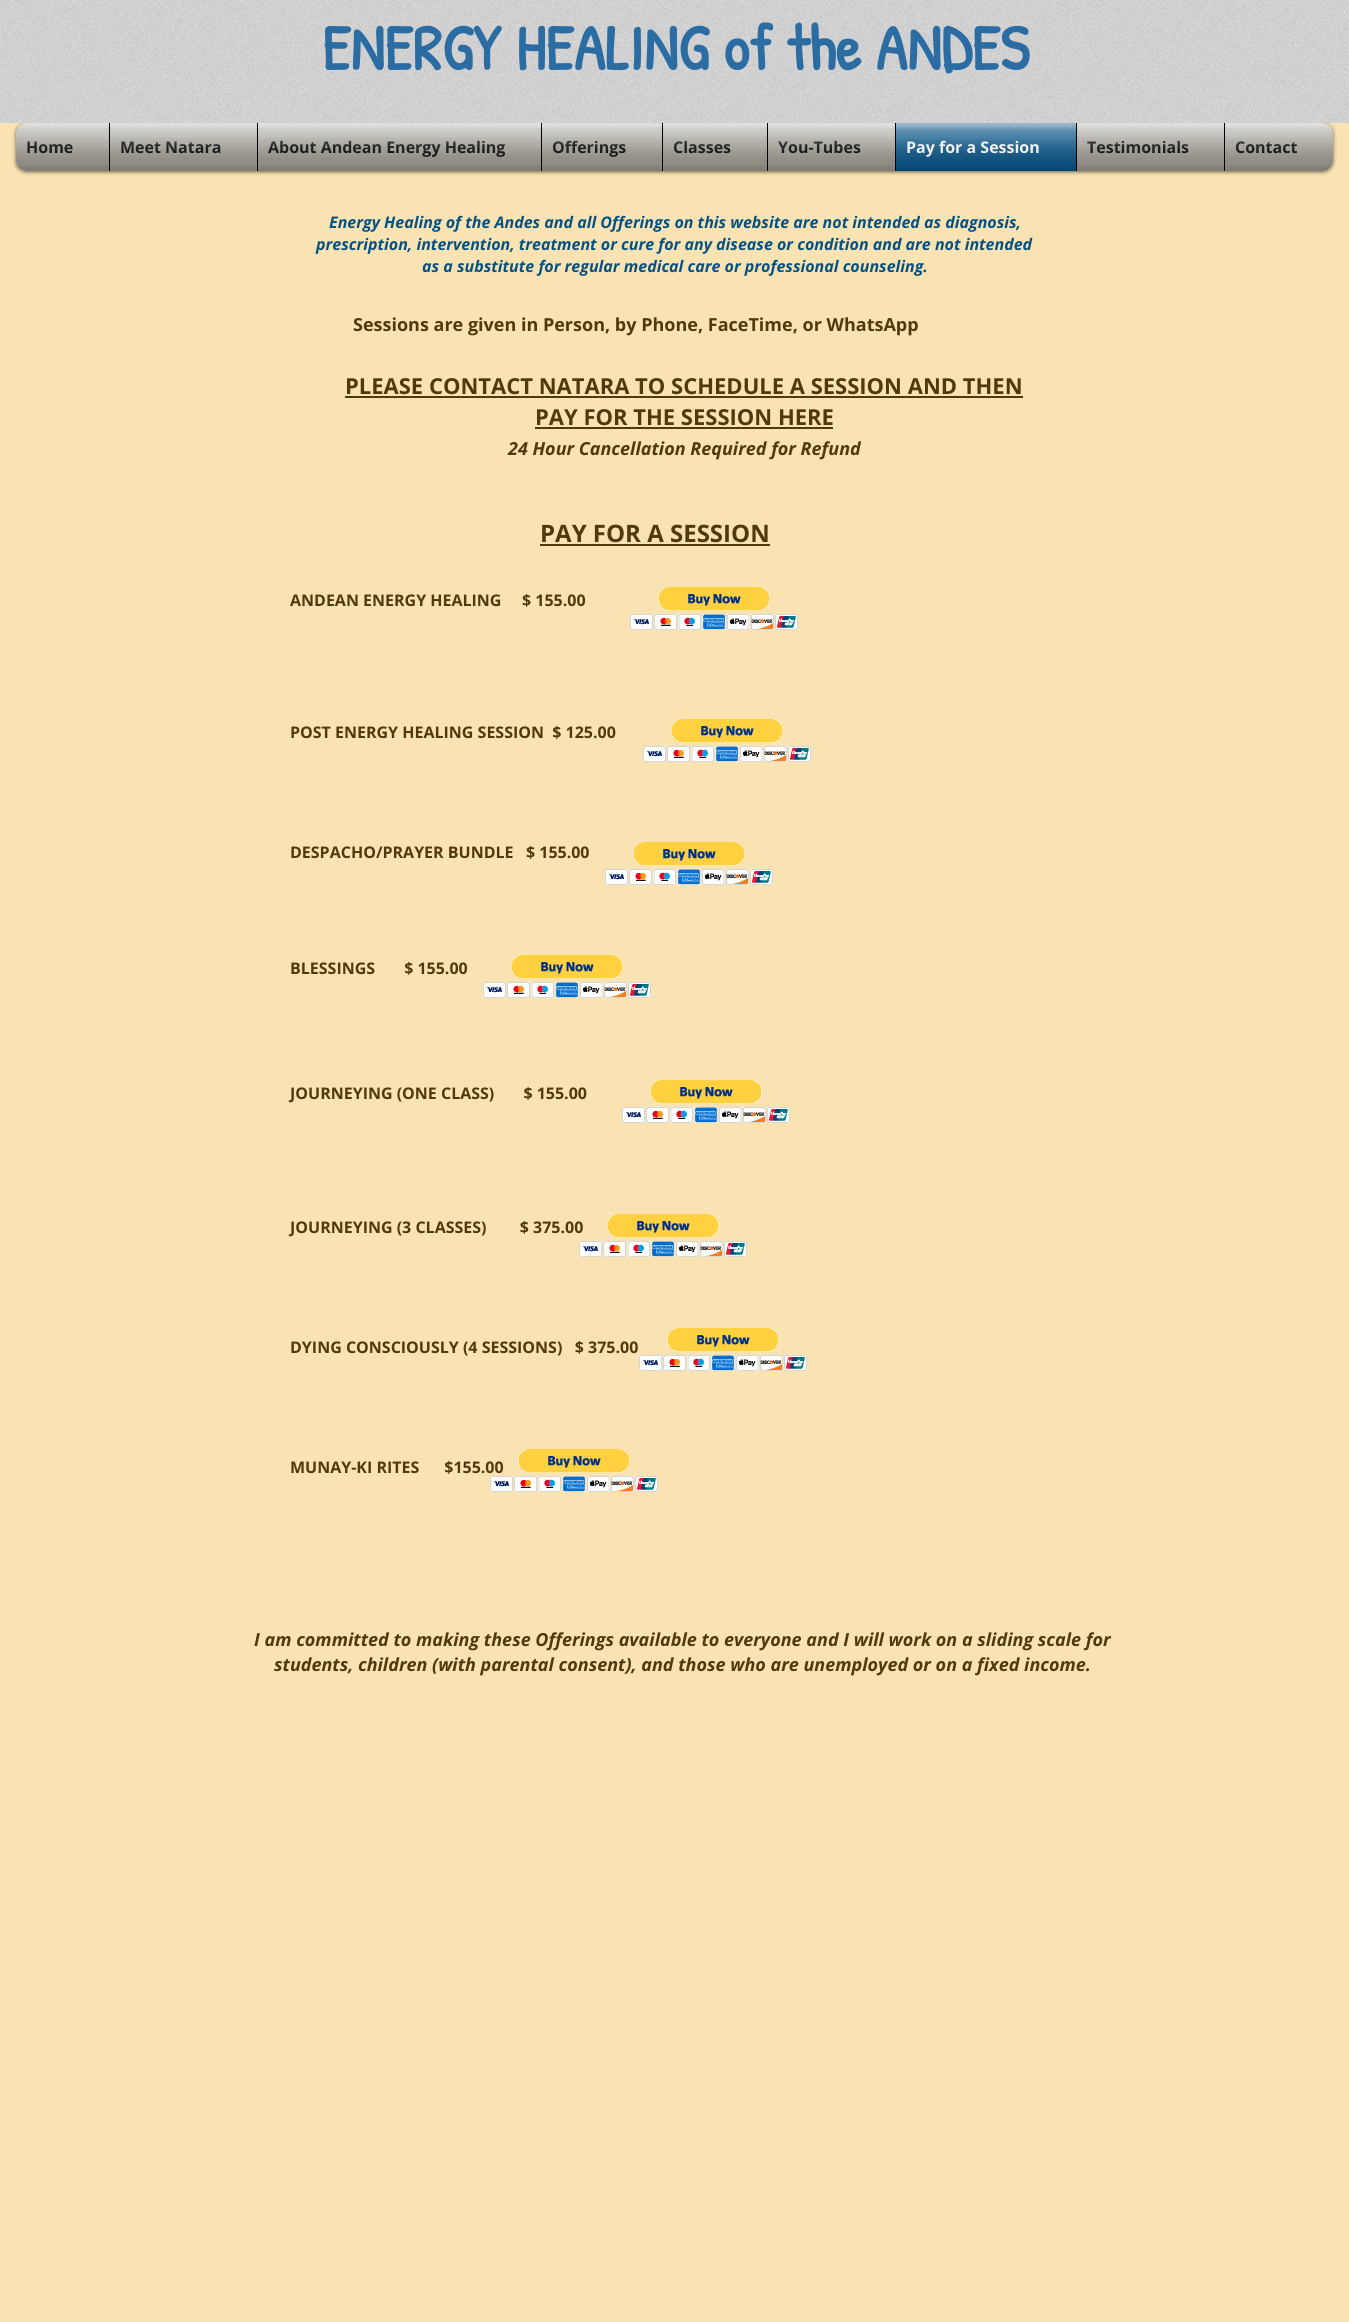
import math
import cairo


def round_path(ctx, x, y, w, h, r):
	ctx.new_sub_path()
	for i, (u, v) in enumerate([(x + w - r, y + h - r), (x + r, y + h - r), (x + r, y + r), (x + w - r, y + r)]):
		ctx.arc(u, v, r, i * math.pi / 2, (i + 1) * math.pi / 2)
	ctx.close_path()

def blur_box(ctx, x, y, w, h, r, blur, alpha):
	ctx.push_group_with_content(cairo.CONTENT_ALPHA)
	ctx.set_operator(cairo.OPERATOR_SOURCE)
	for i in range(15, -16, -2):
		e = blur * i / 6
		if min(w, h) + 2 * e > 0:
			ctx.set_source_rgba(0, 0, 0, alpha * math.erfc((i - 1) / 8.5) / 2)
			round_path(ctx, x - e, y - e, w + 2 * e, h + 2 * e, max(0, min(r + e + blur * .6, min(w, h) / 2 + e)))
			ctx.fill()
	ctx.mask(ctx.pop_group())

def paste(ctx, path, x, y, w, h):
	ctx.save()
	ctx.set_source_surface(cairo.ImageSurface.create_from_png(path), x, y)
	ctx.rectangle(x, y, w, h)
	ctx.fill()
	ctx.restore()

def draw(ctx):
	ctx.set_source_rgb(0.98, 0.89, 0.698)
	ctx.paint()
	ctx.save()
	ctx.set_fill_rule(cairo.FILL_RULE_EVEN_ODD)
	ctx.new_path()
	ctx.move_to(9, 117)
	ctx.line_to(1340, 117)
	ctx.line_to(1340, 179)
	ctx.line_to(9, 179)
	ctx.close_path()
	ctx.move_to(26, 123)
	ctx.line_to(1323, 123)
	ctx.curve_to(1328.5, 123, 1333, 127.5, 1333, 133)
	ctx.line_to(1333, 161)
	ctx.curve_to(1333, 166.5, 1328.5, 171, 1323, 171)
	ctx.line_to(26, 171)
	ctx.curve_to(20.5, 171, 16, 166.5, 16, 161)
	ctx.line_to(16, 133)
	ctx.curve_to(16, 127.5, 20.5, 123, 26, 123)
	ctx.close_path()
	ctx.clip()
	ctx.set_source_rgb(0, 0, 0)
	blur_box(ctx, 16, 124, 1317, 48, 10, 2, 0.6)
	ctx.restore()
	ctx.set_source_rgb(0.839, 0.839, 0.839)
	ctx.rectangle(0, 0, 1349, 123)
	ctx.fill()
	paste(ctx, 'media/1.png', 0, 0, 1349, 123)
	ctx.select_font_face('Patrick Hand', cairo.FONT_SLANT_NORMAL, cairo.FONT_WEIGHT_BOLD)
	ctx.set_font_size(64)
	ctx.set_source_rgb(0.169, 0.424, 0.639)
	ctx.move_to(322, 70)
	ctx.show_text('ENERGY HEALING of the ANDES')
	ctx.set_source_rgba(0.545, 0.545, 0.545, 0.52)
	round_path(ctx, 16, 123, 1317, 48, 10)
	ctx.fill()
	paste(ctx, 'media/2.png', 16, 123, 1317, 41)
	paste(ctx, 'media/3.png', 16, 137, 1317, 34)
	ctx.new_path()
	ctx.move_to(26, 123)
	ctx.line_to(109, 123)
	ctx.line_to(109, 171)
	ctx.line_to(26, 171)
	ctx.curve_to(20.5, 171, 16, 166.5, 16, 161)
	ctx.line_to(16, 133)
	ctx.curve_to(16, 127.5, 20.5, 123, 26, 123)
	ctx.close_path()
	ctx.fill()
	ctx.select_font_face('Open Sans', cairo.FONT_SLANT_NORMAL, cairo.FONT_WEIGHT_BOLD)
	ctx.set_font_size(16)
	ctx.set_source_rgb(0, 0, 0)
	ctx.move_to(26, 153)
	ctx.show_text('Home')
	paste(ctx, 'media/4.png', 16, 123, 93, 43)
	paste(ctx, 'media/5.png', 16, 137, 93, 34)
	ctx.set_source_rgba(0.545, 0.545, 0.545, 0.52)
	ctx.rectangle(110, 123, 147, 48)
	ctx.fill()
	ctx.set_source_rgb(0, 0, 0)
	ctx.rectangle(109, 123, 1, 48)
	ctx.fill()
	ctx.move_to(120, 153)
	ctx.show_text('Meet Natara')
	paste(ctx, 'media/6.png', 110, 123, 147, 43)
	paste(ctx, 'media/7.png', 110, 137, 147, 34)
	ctx.set_source_rgba(0.545, 0.545, 0.545, 0.52)
	ctx.rectangle(258, 123, 283, 48)
	ctx.fill()
	ctx.set_source_rgb(0, 0, 0)
	ctx.rectangle(257, 123, 1, 48)
	ctx.fill()
	ctx.move_to(268, 153)
	ctx.show_text('About Andean Energy Healing')
	paste(ctx, 'media/8.png', 258, 123, 283, 43)
	paste(ctx, 'media/9.png', 258, 137, 283, 34)
	ctx.set_source_rgba(0.545, 0.545, 0.545, 0.52)
	ctx.rectangle(542, 123, 120, 48)
	ctx.fill()
	ctx.set_source_rgb(0, 0, 0)
	ctx.rectangle(541, 123, 1, 48)
	ctx.fill()
	ctx.move_to(552, 153)
	ctx.show_text('Offerings')
	paste(ctx, 'media/10.png', 542, 123, 120, 43)
	paste(ctx, 'media/11.png', 542, 137, 120, 34)
	ctx.set_source_rgba(0.545, 0.545, 0.545, 0.52)
	ctx.rectangle(663, 123, 104, 48)
	ctx.fill()
	ctx.set_source_rgb(0, 0, 0)
	ctx.rectangle(662, 123, 1, 48)
	ctx.fill()
	ctx.move_to(673, 153)
	ctx.show_text('Classes')
	paste(ctx, 'media/12.png', 663, 123, 104, 43)
	paste(ctx, 'media/13.png', 663, 137, 104, 34)
	ctx.set_source_rgba(0.545, 0.545, 0.545, 0.52)
	ctx.rectangle(768, 123, 127, 48)
	ctx.fill()
	ctx.set_source_rgb(0, 0, 0)
	ctx.rectangle(767, 123, 1, 48)
	ctx.fill()
	ctx.move_to(778, 153)
	ctx.show_text('You-Tubes')
	paste(ctx, 'media/14.png', 768, 123, 127, 43)
	paste(ctx, 'media/15.png', 768, 137, 127, 34)
	ctx.set_source_rgb(0.016, 0.318, 0.518)
	ctx.rectangle(896, 123, 180, 48)
	ctx.fill()
	ctx.set_source_rgb(0, 0, 0)
	ctx.rectangle(895, 123, 1, 48)
	ctx.fill()
	ctx.set_source_rgb(1, 1, 1)
	ctx.move_to(906, 153)
	ctx.show_text('Pay for a Session')
	paste(ctx, 'media/16.png', 896, 123, 180, 46)
	paste(ctx, 'media/17.png', 896, 139, 180, 32)
	ctx.set_source_rgba(0.545, 0.545, 0.545, 0.52)
	ctx.rectangle(1077, 123, 147, 48)
	ctx.fill()
	ctx.set_source_rgb(0, 0, 0)
	ctx.rectangle(1076, 123, 1, 48)
	ctx.fill()
	ctx.move_to(1087, 153)
	ctx.show_text('Testimonials')
	paste(ctx, 'media/18.png', 1077, 123, 147, 43)
	paste(ctx, 'media/19.png', 1077, 137, 147, 34)
	ctx.set_source_rgba(0.545, 0.545, 0.545, 0.52)
	ctx.new_path()
	ctx.move_to(1224, 123)
	ctx.line_to(1323, 123)
	ctx.curve_to(1328.5, 123, 1333, 127.5, 1333, 133)
	ctx.line_to(1333, 161)
	ctx.curve_to(1333, 166.5, 1328.5, 171, 1323, 171)
	ctx.line_to(1224, 171)
	ctx.close_path()
	ctx.fill()
	ctx.set_source_rgb(0, 0, 0)
	ctx.rectangle(1224, 123, 1, 48)
	ctx.fill()
	ctx.move_to(1235, 153)
	ctx.show_text('Contact')
	paste(ctx, 'media/20.png', 1225, 123, 108, 43)
	paste(ctx, 'media/21.png', 1225, 137, 108, 34)
	ctx.select_font_face('Open Sans', cairo.FONT_SLANT_ITALIC, cairo.FONT_WEIGHT_BOLD)
	ctx.set_source_rgb(0.016, 0.318, 0.518)
	for x, y, s in [
		(329, 228, 'Energy Healing of the Andes and all Offerings on this website are not intended as diagnosis,'),
		(316, 250, 'prescription, intervention, treatment or cure for any disease or condition and are not intended'),
		(422, 272, 'as a substitute for regular medical care or professional counseling.'),
	]:
		ctx.move_to(x, y)
		ctx.show_text(s)
	ctx.select_font_face('Open Sans', cairo.FONT_SLANT_NORMAL, cairo.FONT_WEIGHT_BOLD)
	ctx.set_font_size(18)
	ctx.set_source_rgb(0.314, 0.227, 0.043)
	ctx.move_to(353, 331)
	ctx.show_text('Sessions are given in Person, by Phone, FaceTime, or WhatsApp')
	ctx.set_font_size(22)
	ctx.move_to(345, 394)
	ctx.show_text('PLEASE CONTACT NATARA TO SCHEDULE A SESSION AND THEN')
	ctx.rectangle(345, 396, 678, 2)
	ctx.fill()
	ctx.move_to(535, 425)
	ctx.show_text('PAY FOR THE SESSION HERE')
	ctx.rectangle(535, 427, 298, 2)
	ctx.fill()
	ctx.select_font_face('Open Sans', cairo.FONT_SLANT_ITALIC, cairo.FONT_WEIGHT_BOLD)
	ctx.set_font_size(18)
	ctx.move_to(508, 455)
	ctx.show_text('24 Hour Cancellation Required for Refund')
	ctx.select_font_face('Open Sans', cairo.FONT_SLANT_NORMAL, cairo.FONT_WEIGHT_BOLD)
	ctx.set_font_size(24)
	ctx.move_to(540, 542)
	ctx.show_text('PAY FOR A SESSION')
	ctx.rectangle(540, 544, 230, 2)
	ctx.fill()
	ctx.set_font_size(16)
	for x, y, s in [
		(290, 606, 'ANDEAN ENERGY HEALING'),
		(522, 606, '$ 155.00'),
		(290, 738, 'POST ENERGY HEALING SESSION  $ 125.00'),
		(290, 858, 'DESPACHO/PRAYER BUNDLE   $ 155.00'),
		(290, 974, 'BLESSINGS       $ 155.00'),
		(290, 1099, 'JOURNEYING (ONE CLASS)       $ 155.00'),
		(290, 1233, 'JOURNEYING (3 CLASSES)        $ 375.00'),
		(290, 1353, 'DYING CONSCIOUSLY (4 SESSIONS)   $ 375.00'),
		(290, 1473, 'MUNAY-KI RITES      $155.00'),
	]:
		ctx.move_to(x, y)
		ctx.show_text(s)
	paste(ctx, 'media/22.png', 630, 587, 168, 43)
	paste(ctx, 'media/22.png', 643, 719, 168, 43)
	paste(ctx, 'media/22.png', 605, 842, 168, 43)
	paste(ctx, 'media/22.png', 483, 955, 168, 43)
	paste(ctx, 'media/22.png', 622, 1080, 168, 43)
	paste(ctx, 'media/23.png', 579, 1214, 168, 43)
	paste(ctx, 'media/22.png', 639, 1328, 168, 43)
	paste(ctx, 'media/24.png', 490, 1449, 168, 43)
	ctx.select_font_face('Open Sans', cairo.FONT_SLANT_ITALIC, cairo.FONT_WEIGHT_BOLD)
	ctx.set_font_size(18)
	ctx.move_to(254, 1646)
	ctx.show_text('I am committed to making these Offerings available to everyone and I will work on a sliding scale for')
	ctx.move_to(274, 1671)
	ctx.show_text('students, children (with parental consent), and those who are unemployed or on a fixed income.')


surface = cairo.ImageSurface(cairo.FORMAT_RGB24, 1349, 2322)
ctx = cairo.Context(surface)
options = cairo.FontOptions()
options.set_hint_metrics(cairo.HINT_METRICS_OFF)
options.set_hint_style(cairo.HINT_STYLE_NONE)
ctx.set_font_options(options)
ctx.set_miter_limit(4)
draw(ctx)
surface.write_to_png('image.png')
